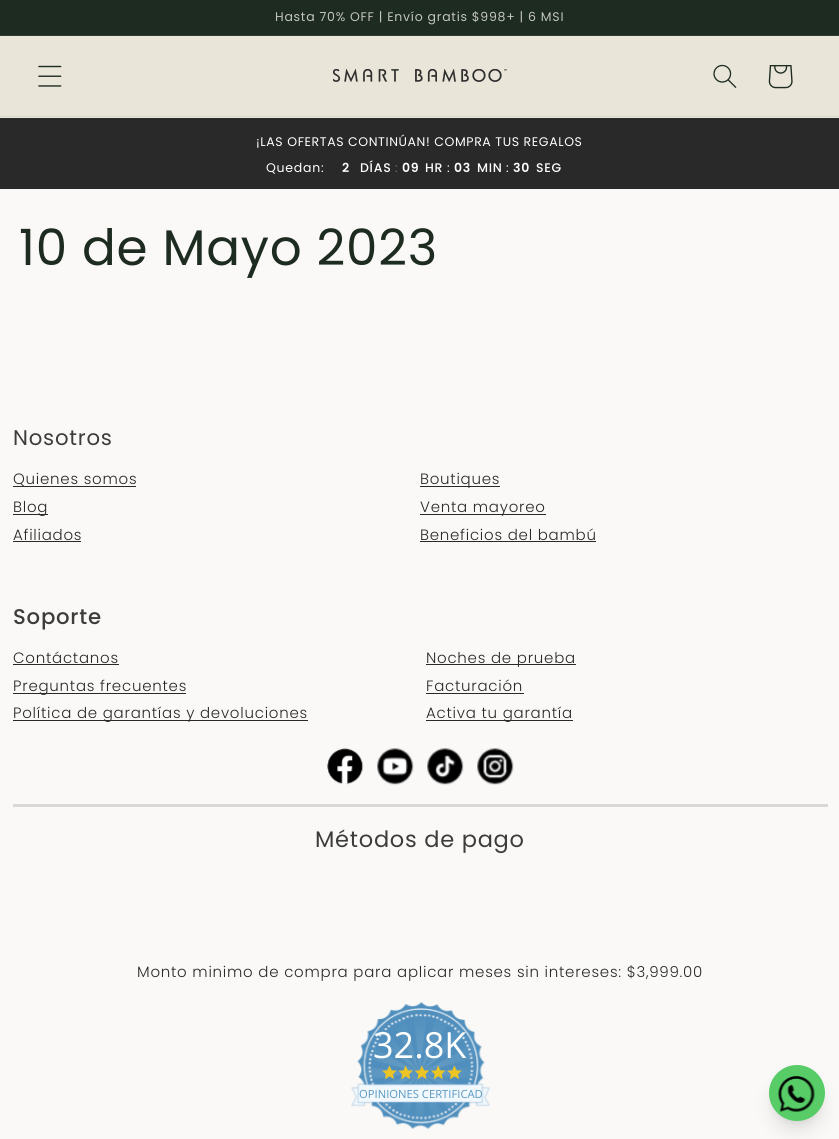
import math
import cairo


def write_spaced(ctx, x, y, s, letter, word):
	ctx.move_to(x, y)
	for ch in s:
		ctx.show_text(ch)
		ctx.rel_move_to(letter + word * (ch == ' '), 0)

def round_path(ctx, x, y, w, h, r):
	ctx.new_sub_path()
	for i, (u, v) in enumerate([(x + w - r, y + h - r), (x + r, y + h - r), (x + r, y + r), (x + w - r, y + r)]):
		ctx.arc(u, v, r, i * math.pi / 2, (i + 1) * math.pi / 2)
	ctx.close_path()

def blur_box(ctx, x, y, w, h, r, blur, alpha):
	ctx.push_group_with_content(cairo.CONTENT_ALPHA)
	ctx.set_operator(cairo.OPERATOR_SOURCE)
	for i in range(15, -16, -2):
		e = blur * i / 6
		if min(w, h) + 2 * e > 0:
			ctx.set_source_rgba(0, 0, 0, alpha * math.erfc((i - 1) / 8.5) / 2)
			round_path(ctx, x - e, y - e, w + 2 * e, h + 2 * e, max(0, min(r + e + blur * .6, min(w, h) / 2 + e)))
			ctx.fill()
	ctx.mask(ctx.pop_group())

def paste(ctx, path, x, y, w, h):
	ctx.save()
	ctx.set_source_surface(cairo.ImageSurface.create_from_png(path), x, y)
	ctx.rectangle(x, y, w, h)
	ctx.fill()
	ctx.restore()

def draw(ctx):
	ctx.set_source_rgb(0.98, 0.973, 0.965)
	ctx.paint()
	ctx.set_source_rgb(0.114, 0.169, 0.125)
	ctx.rectangle(0, 0, 839, 35)
	ctx.fill()
	ctx.set_source_rgb(0.184, 0.231, 0.192)
	ctx.rectangle(0, 35, 839, 1)
	ctx.fill()
	ctx.select_font_face('Poppins')
	ctx.set_font_size(12.5)
	ctx.set_source_rgb(0.765, 0.773, 0.757)
	write_spaced(ctx, 275, 21, 'Hasta 70% OFF | Envío gratis $998+ | 6 MSI', 0.75, 0)
	ctx.set_source_rgb(0.914, 0.898, 0.851)
	ctx.rectangle(0, 36, 839, 82)
	ctx.fill()
	ctx.set_source_rgb(0.851, 0.839, 0.792)
	ctx.rectangle(0, 116, 839, 1)
	ctx.fill()
	paste(ctx, 'media/1.png', 38, 65, 24, 22)
	paste(ctx, 'media/2.png', 333, 69, 174, 13)
	paste(ctx, 'media/3.png', 713, 64, 24, 24)
	paste(ctx, 'media/4.png', 768, 65, 25, 24)
	ctx.set_source_rgb(0.161, 0.161, 0.161)
	ctx.rectangle(0, 118, 839, 71)
	ctx.fill()
	ctx.set_source_rgb(1, 1, 1)
	write_spaced(ctx, 256, 146, '¡LAS OFERTAS CONTINÚAN! COMPRA TUS REGALOS', 0.6, 0)
	write_spaced(ctx, 266, 172, 'Quedan:', 0.75, 0)
	ctx.select_font_face('Poppins SemiBold')
	write_spaced(ctx, 342, 172, '2', 0.75, 0)
	ctx.select_font_face('Poppins Medium')
	write_spaced(ctx, 360, 172, 'DÍAS', 0.75, 0)
	ctx.select_font_face('Poppins')
	ctx.set_source_rgb(0.42, 0.447, 0.502)
	write_spaced(ctx, 395, 172, ':', 0.75, 0)
	ctx.select_font_face('Poppins SemiBold')
	ctx.set_source_rgb(1, 1, 1)
	write_spaced(ctx, 402, 172, '09', 0.75, 0)
	ctx.select_font_face('Poppins Medium')
	write_spaced(ctx, 425, 172, 'HR', 0.75, 0)
	ctx.select_font_face('Poppins')
	write_spaced(ctx, 447, 172, ':', 0.75, 0)
	ctx.select_font_face('Poppins SemiBold')
	write_spaced(ctx, 454, 172, '03', 0.75, 0)
	ctx.select_font_face('Poppins Medium')
	write_spaced(ctx, 477, 172, 'MIN', 0.75, 0)
	ctx.select_font_face('Poppins')
	write_spaced(ctx, 506, 172, ':', 0.75, 0)
	ctx.select_font_face('Poppins SemiBold')
	write_spaced(ctx, 513, 172, '30', 0.75, 0)
	ctx.select_font_face('Poppins Medium')
	write_spaced(ctx, 536, 172, 'SEG', 0.75, 0)
	ctx.select_font_face('Poppins')
	ctx.set_font_size(50)
	ctx.set_source_rgb(0.114, 0.169, 0.125)
	write_spaced(ctx, 19, 265, '10 de Mayo 2023', 0.75, 0)
	ctx.set_font_size(21.25)
	ctx.set_source_rgb(0.235, 0.235, 0.231)
	write_spaced(ctx, 13, 445, 'Nosotros', 0.75, 0)
	ctx.set_source_rgb(0.161, 0.161, 0.161)
	ctx.rectangle(13, 486, 123, 1)
	ctx.fill()
	ctx.select_font_face('Poppins Light')
	ctx.set_font_size(15)
	write_spaced(ctx, 13, 484, 'Quienes somos', 0.75, 0)
	ctx.rectangle(13, 514, 35, 1)
	ctx.fill()
	write_spaced(ctx, 13, 512, 'Blog', 0.75, 0)
	write_spaced(ctx, 13, 540, 'Afiliados', 0.75, 0)
	ctx.rectangle(13, 541, 68, 1)
	ctx.fill()
	ctx.rectangle(420, 486, 80, 1)
	ctx.fill()
	write_spaced(ctx, 420, 484, 'Boutiques', 0.75, 0)
	ctx.rectangle(420, 514, 126, 1)
	ctx.fill()
	write_spaced(ctx, 420, 512, 'Venta mayoreo', 0.75, 0)
	write_spaced(ctx, 420, 540, 'Beneficios del bambú', 0.75, 0)
	ctx.rectangle(420, 541, 176, 1)
	ctx.fill()
	ctx.select_font_face('Poppins Medium')
	ctx.set_font_size(21.25)
	ctx.set_source_rgb(0.235, 0.235, 0.231)
	write_spaced(ctx, 13, 624, 'Soporte', 0.75, 0)
	ctx.select_font_face('Poppins Light')
	ctx.set_font_size(15)
	ctx.set_source_rgb(0.161, 0.161, 0.161)
	write_spaced(ctx, 13, 663, 'Contáctanos', 0.75, 0)
	ctx.rectangle(13, 664, 106, 1)
	ctx.fill()
	ctx.rectangle(13, 693, 173, 1)
	ctx.fill()
	write_spaced(ctx, 13, 691, 'Preguntas frecuentes', 0.75, 0)
	ctx.rectangle(13, 720, 295, 1)
	ctx.fill()
	write_spaced(ctx, 13, 718, 'Política de garantías y devoluciones', 0.75, 0)
	ctx.rectangle(426, 664, 150, 1)
	ctx.fill()
	write_spaced(ctx, 426, 663, 'Noches de prueba', 0.75, 0)
	write_spaced(ctx, 426, 691, 'Facturación', 0.75, 0)
	ctx.rectangle(426, 693, 98, 1)
	ctx.fill()
	ctx.rectangle(426, 720, 147, 1)
	ctx.fill()
	write_spaced(ctx, 426, 718, 'Activa tu garantía', 0.75, 0)
	ctx.set_source_rgb(0.847, 0.847, 0.847)
	ctx.rectangle(13, 804, 815, 3)
	ctx.fill()
	paste(ctx, 'media/5.png', 327, 748, 37, 37)
	paste(ctx, 'media/6.png', 377, 748, 37, 37)
	paste(ctx, 'media/7.png', 427, 748, 37, 37)
	paste(ctx, 'media/8.png', 477, 748, 37, 37)
	ctx.select_font_face('Poppins')
	ctx.set_font_size(22.5)
	ctx.set_source_rgb(0.235, 0.235, 0.231)
	write_spaced(ctx, 315, 847, 'Métodos de pago', 0.75, 0)
	ctx.select_font_face('Poppins Light')
	ctx.set_font_size(15)
	ctx.set_source_rgb(0.161, 0.161, 0.161)
	write_spaced(ctx, 137, 977, 'Monto minimo de compra para aplicar meses sin intereses: $3,999.00', 0.75, 0)
	paste(ctx, 'media/9.png', 351, 1002, 139, 127)
	ctx.select_font_face('Open Sans')
	ctx.set_font_size(36)
	ctx.set_source_rgb(1, 1, 1)
	ctx.move_to(373, 1058)
	ctx.show_text('32.8K')
	paste(ctx, 'media/10.png', 382, 1065, 15, 15)
	paste(ctx, 'media/11.png', 398, 1065, 15, 15)
	paste(ctx, 'media/12.png', 414, 1065, 15, 15)
	paste(ctx, 'media/13.png', 431, 1065, 15, 15)
	paste(ctx, 'media/14.png', 447, 1065, 15, 15)
	ctx.set_font_size(11.25)
	ctx.set_source_rgb(0.349, 0.592, 0.757)
	ctx.move_to(359, 1098)
	ctx.show_text('OPINIONES CERTIFICAD')
	ctx.set_source_rgb(0, 0, 0)
	blur_box(ctx, 774, 1075, 46, 46, 23, 4, 0.1)
	blur_box(ctx, 773, 1081, 48, 49, 24, 9.5, 0.1)
	ctx.set_source_rgb(0.341, 0.8, 0.404)
	ctx.arc(797, 1093, 28, 0, 2 * math.pi)
	ctx.fill()
	paste(ctx, 'media/15.png', 778, 1076, 37, 36)


surface = cairo.ImageSurface(cairo.FORMAT_RGB24, 839, 1139)
ctx = cairo.Context(surface)
options = cairo.FontOptions()
options.set_hint_metrics(cairo.HINT_METRICS_OFF)
options.set_hint_style(cairo.HINT_STYLE_NONE)
ctx.set_font_options(options)
ctx.set_miter_limit(4)
draw(ctx)
surface.write_to_png('image.png')
